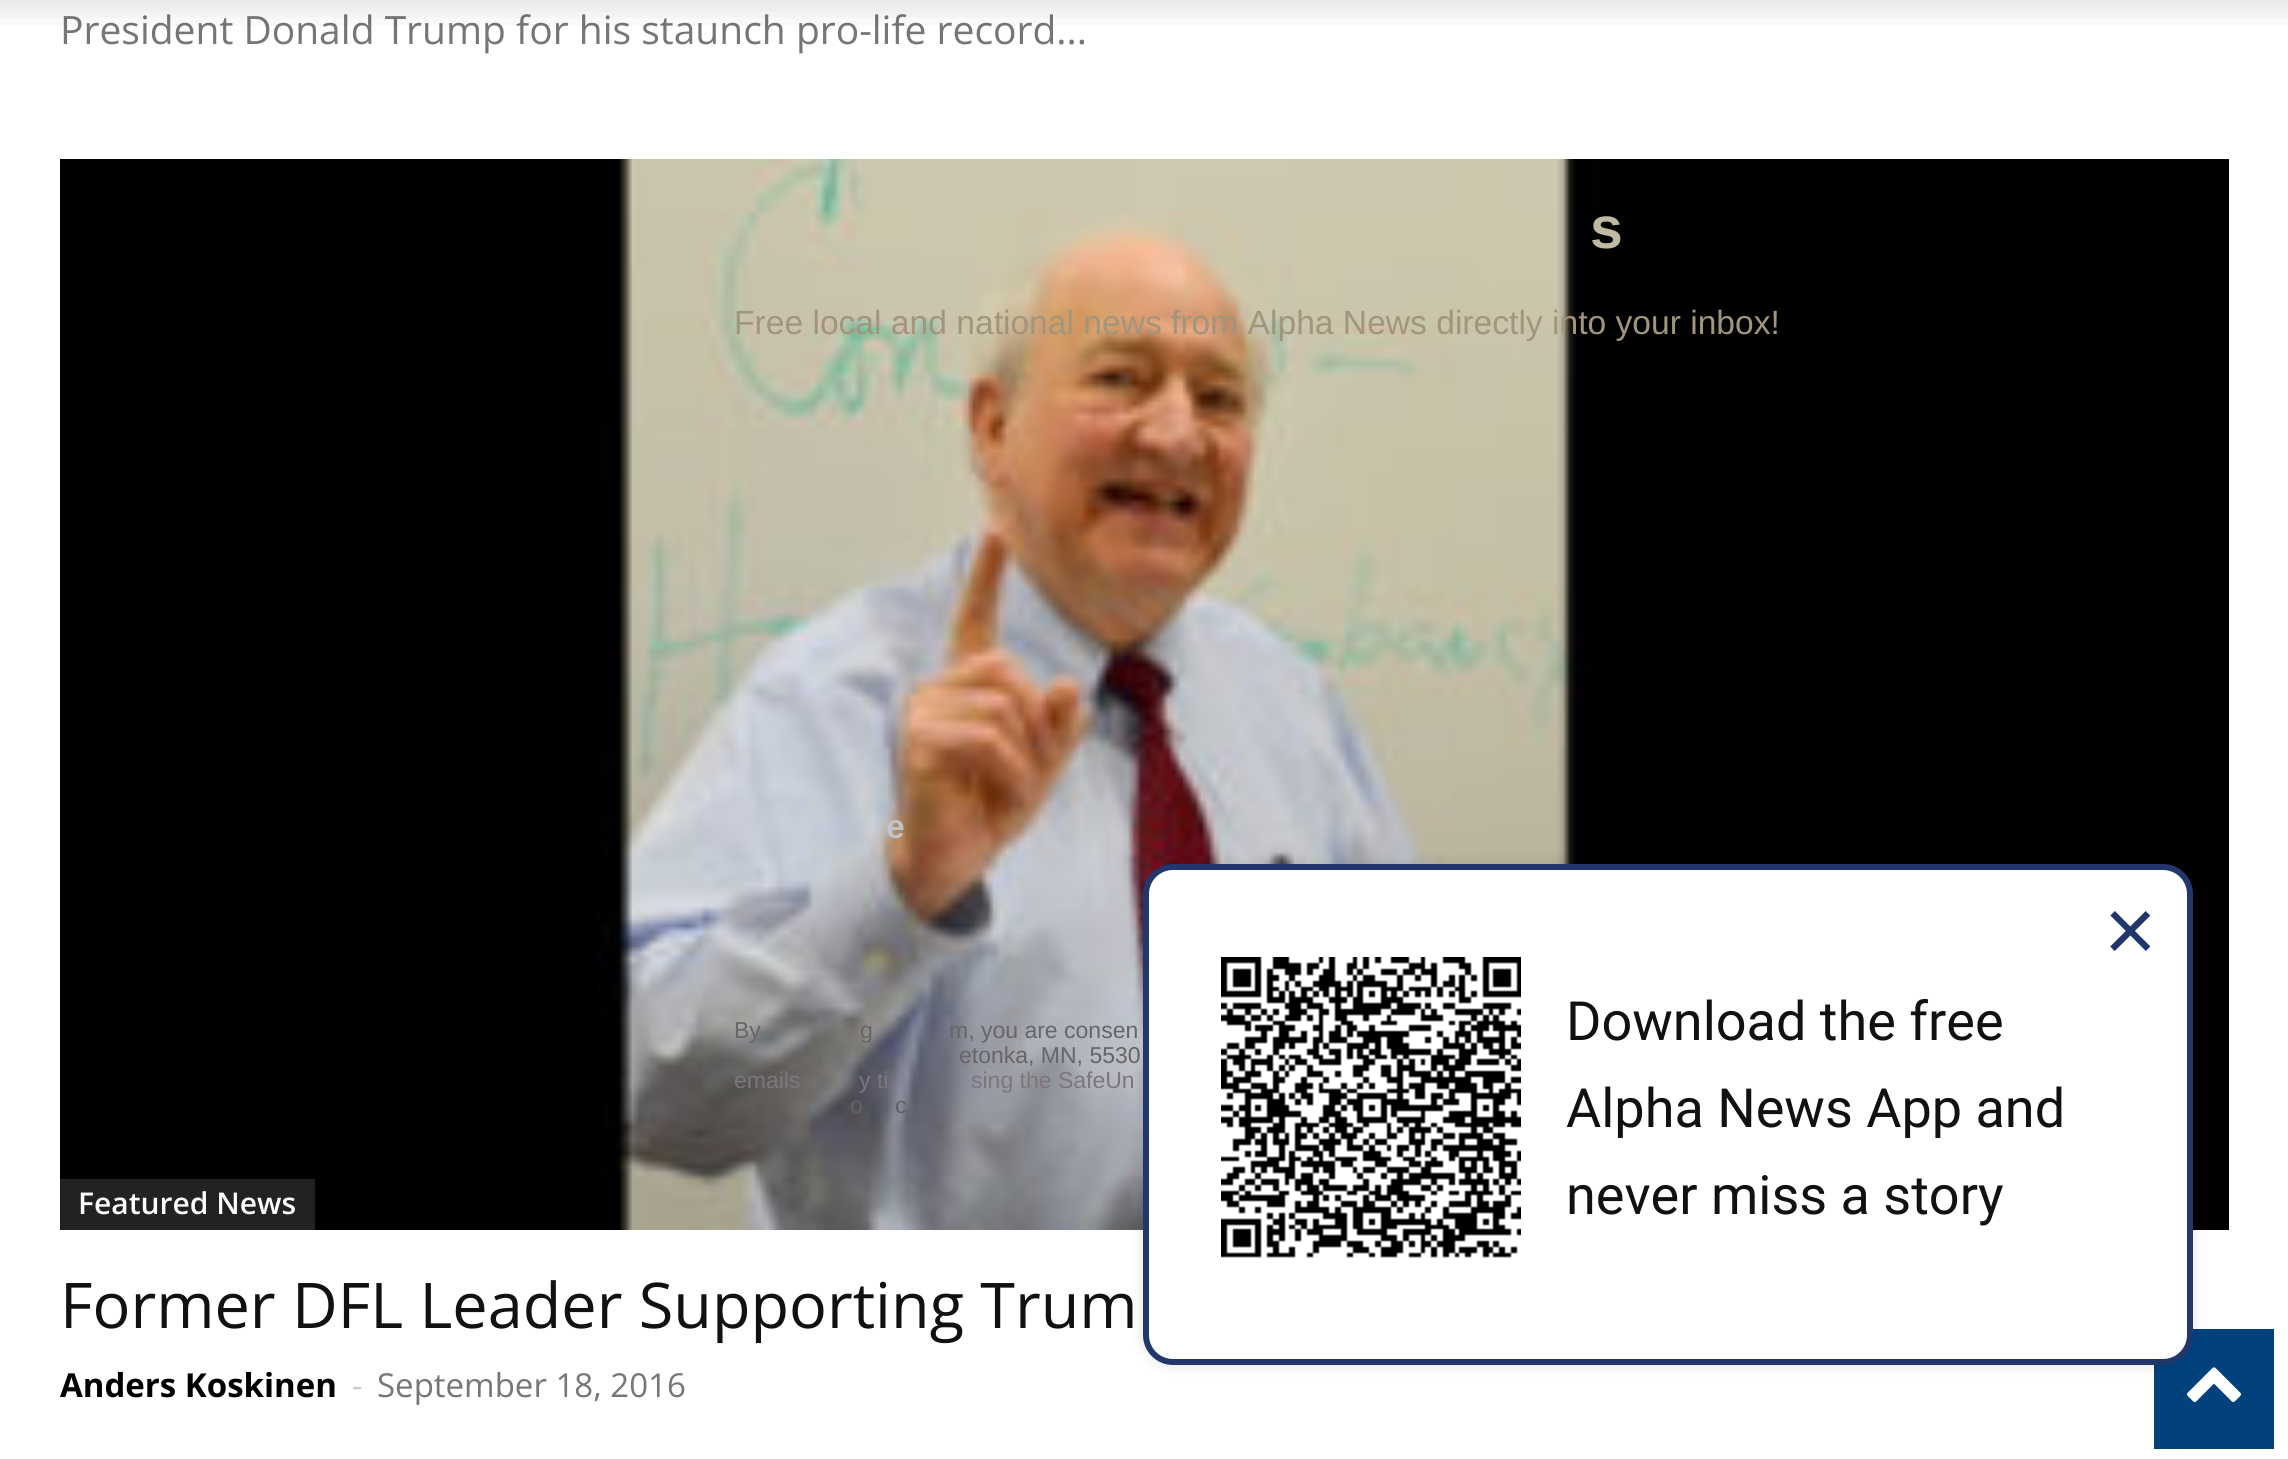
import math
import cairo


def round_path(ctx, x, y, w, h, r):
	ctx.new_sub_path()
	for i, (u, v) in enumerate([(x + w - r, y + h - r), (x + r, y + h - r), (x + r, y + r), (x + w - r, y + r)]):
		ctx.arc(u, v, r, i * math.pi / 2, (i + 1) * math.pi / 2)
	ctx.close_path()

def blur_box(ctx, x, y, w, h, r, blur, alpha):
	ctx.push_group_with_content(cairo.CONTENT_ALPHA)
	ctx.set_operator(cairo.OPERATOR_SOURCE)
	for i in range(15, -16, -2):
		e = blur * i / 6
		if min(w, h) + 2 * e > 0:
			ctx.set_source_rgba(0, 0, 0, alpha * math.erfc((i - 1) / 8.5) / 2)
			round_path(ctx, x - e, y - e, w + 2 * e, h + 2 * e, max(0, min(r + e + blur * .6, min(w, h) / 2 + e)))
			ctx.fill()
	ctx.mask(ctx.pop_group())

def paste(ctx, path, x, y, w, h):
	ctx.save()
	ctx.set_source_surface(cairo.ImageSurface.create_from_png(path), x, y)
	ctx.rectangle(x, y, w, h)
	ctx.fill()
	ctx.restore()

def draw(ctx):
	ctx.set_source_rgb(1, 1, 1)
	ctx.paint()
	ctx.select_font_face('Open Sans')
	ctx.set_font_size(39)
	ctx.set_source_rgb(0.463, 0.463, 0.463)
	ctx.move_to(60, 44)
	ctx.show_text('President Donald Trump for his staunch pro-life record...')
	paste(ctx, 'media/1.png', 0, 0, 2288, 26)
	paste(ctx, 'media/2.png', 60, 159, 2169, 1071)
	ctx.set_source_rgb(0.133, 0.133, 0.133)
	ctx.rectangle(60, 1179, 255, 51)
	ctx.fill()
	ctx.select_font_face('Open Sans SemiBold')
	ctx.set_font_size(30)
	ctx.set_source_rgb(1, 1, 1)
	ctx.move_to(78, 1214)
	ctx.show_text('Featured News')
	ctx.select_font_face('Open Sans')
	ctx.set_font_size(63)
	ctx.set_source_rgb(0.067, 0.067, 0.067)
	ctx.move_to(60, 1328)
	ctx.show_text('Former DFL Leader Supporting Trum')
	ctx.select_font_face('Open Sans', cairo.FONT_SLANT_NORMAL, cairo.FONT_WEIGHT_BOLD)
	ctx.set_font_size(33)
	ctx.set_source_rgb(0, 0, 0)
	ctx.move_to(60, 1397)
	ctx.show_text('Anders Koskinen')
	ctx.select_font_face('Open Sans')
	ctx.set_source_rgb(0.8, 0.8, 0.8)
	ctx.move_to(352, 1397)
	ctx.show_text('-')
	ctx.set_source_rgb(0.463, 0.463, 0.463)
	ctx.move_to(377, 1397)
	ctx.show_text('September 18, 2016')
	ctx.select_font_face('Liberation Sans', cairo.FONT_SLANT_NORMAL, cairo.FONT_WEIGHT_BOLD)
	ctx.set_font_size(59)
	ctx.set_source_rgb(0.749, 0.725, 0.631)
	ctx.move_to(1590, 248)
	ctx.show_text('s')
	ctx.select_font_face('Liberation Sans')
	ctx.set_font_size(33.6)
	ctx.set_source_rgb(0.631, 0.584, 0.486)
	ctx.move_to(734, 334)
	ctx.show_text('Free local and national news from Alpha News directly into your inbox!')
	ctx.select_font_face('Liberation Sans', cairo.FONT_SLANT_NORMAL, cairo.FONT_WEIGHT_BOLD)
	ctx.set_source_rgb(0.761, 0.765, 0.792)
	ctx.move_to(886, 838)
	ctx.show_text('e')
	ctx.select_font_face('Liberation Sans')
	ctx.set_font_size(23)
	ctx.set_source_rgb(0.412, 0.392, 0.404)
	for x, y, s in [
		(734, 1038, 'By'),
		(860, 1038, 'g'),
		(949, 1038, 'm, you are consen'),
		(959, 1063, 'etonka, MN, 5530'),
	]:
		ctx.move_to(x, y)
		ctx.show_text(s)
	ctx.set_source_rgb(0.49, 0.463, 0.49)
	for x, y, s in [
		(734, 1088, 'emails'),
		(859, 1088, 'y ti'),
		(971, 1088, 'sing the SafeUn'),
	]:
		ctx.move_to(x, y)
		ctx.show_text(s)
	ctx.set_source_rgb(0.384, 0.38, 0.396)
	ctx.move_to(850, 1113)
	ctx.show_text('o')
	ctx.move_to(895, 1113)
	ctx.show_text('c')
	ctx.set_source_rgb(0, 0.255, 0.494)
	ctx.rectangle(2154, 1329, 120, 120)
	ctx.fill()
	paste(ctx, 'media/4.png', 2187, 1367, 54, 35)
	ctx.set_source_rgb(0, 0, 0)
	blur_box(ctx, 1140, 861, 1056, 507, 33, 6, 0.08)
	ctx.set_source_rgb(1, 1, 1)
	round_path(ctx, 1146, 867, 1044, 495, 27)
	ctx.fill_preserve()
	ctx.set_source_rgb(0.129, 0.216, 0.42)
	ctx.set_line_width(6)
	ctx.stroke()
	ctx.set_font_size(90)
	ctx.move_to(2104, 961)
	ctx.show_text('×')
	paste(ctx, 'media/3.png', 1221, 957, 300, 301)
	ctx.select_font_face('Roboto')
	ctx.set_font_size(54)
	ctx.set_source_rgb(0.067, 0.067, 0.067)
	for x, y, s in [
		(1566, 1040, 'Download the free'),
		(1566, 1127, 'Alpha News App and'),
		(1566, 1214, 'never miss a story'),
	]:
		ctx.move_to(x, y)
		ctx.show_text(s)


surface = cairo.ImageSurface(cairo.FORMAT_RGB24, 2288, 1459)
ctx = cairo.Context(surface)
options = cairo.FontOptions()
options.set_hint_metrics(cairo.HINT_METRICS_OFF)
options.set_hint_style(cairo.HINT_STYLE_NONE)
ctx.set_font_options(options)
ctx.set_miter_limit(4)
draw(ctx)
surface.write_to_png('image.png')
